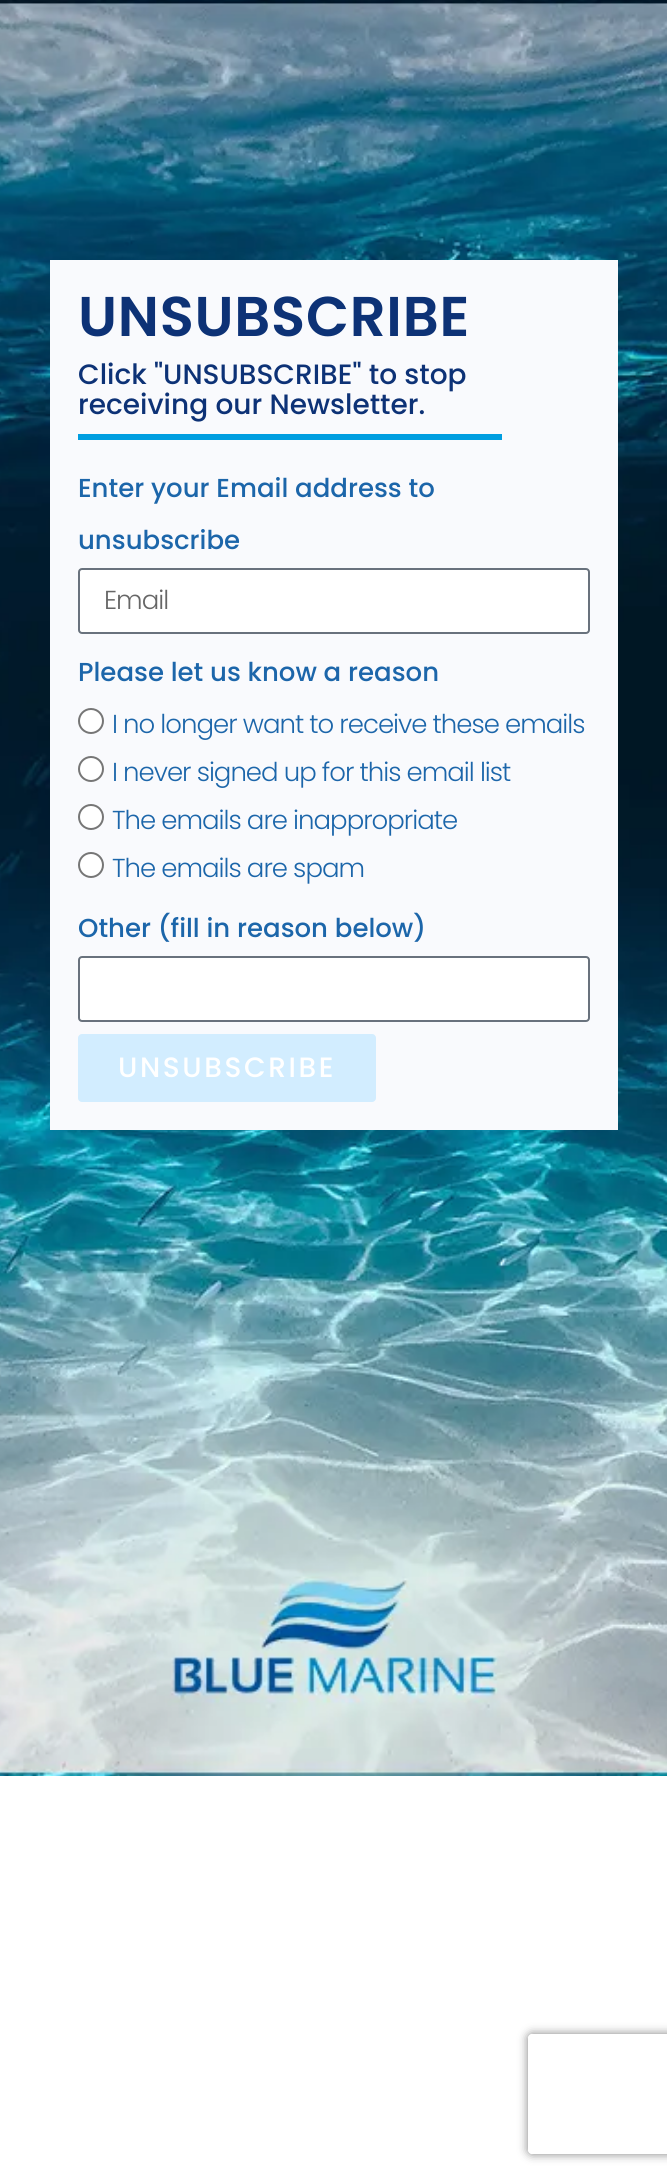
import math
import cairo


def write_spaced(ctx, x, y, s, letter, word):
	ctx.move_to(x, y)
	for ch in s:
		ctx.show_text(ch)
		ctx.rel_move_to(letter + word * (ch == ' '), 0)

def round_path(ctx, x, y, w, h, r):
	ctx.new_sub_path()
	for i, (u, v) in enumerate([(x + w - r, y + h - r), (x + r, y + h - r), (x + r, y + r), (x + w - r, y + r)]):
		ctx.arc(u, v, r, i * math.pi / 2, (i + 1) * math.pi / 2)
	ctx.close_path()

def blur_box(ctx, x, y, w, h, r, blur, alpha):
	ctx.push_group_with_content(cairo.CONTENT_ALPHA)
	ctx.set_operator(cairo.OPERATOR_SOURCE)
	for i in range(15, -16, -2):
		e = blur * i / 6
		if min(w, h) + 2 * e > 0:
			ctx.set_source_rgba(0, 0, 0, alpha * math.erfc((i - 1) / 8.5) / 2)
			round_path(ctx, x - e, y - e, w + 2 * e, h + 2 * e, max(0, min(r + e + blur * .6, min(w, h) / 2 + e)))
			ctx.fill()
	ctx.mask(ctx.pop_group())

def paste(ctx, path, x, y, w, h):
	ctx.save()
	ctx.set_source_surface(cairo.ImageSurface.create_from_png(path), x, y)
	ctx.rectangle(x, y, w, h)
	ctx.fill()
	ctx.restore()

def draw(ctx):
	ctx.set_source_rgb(1, 1, 1)
	ctx.paint()
	paste(ctx, 'media/1.png', 0, 0, 667, 1776)
	ctx.set_source_rgb(0.976, 0.98, 0.992)
	ctx.rectangle(50, 260, 568, 870)
	ctx.fill()
	ctx.select_font_face('Poppins SemiBold')
	ctx.set_font_size(56)
	ctx.set_source_rgb(0.051, 0.196, 0.463)
	write_spaced(ctx, 78, 336, 'UNSUBSCRIBE', 0.75, 0)
	ctx.select_font_face('Poppins Medium')
	ctx.set_font_size(28)
	ctx.move_to(78, 384)
	ctx.show_text('Click "UNSUBSCRIBE" to stop')
	ctx.move_to(78, 414)
	ctx.show_text('receiving our Newsletter.')
	ctx.set_source_rgb(0, 0.62, 0.878)
	ctx.rectangle(78, 434, 424, 6)
	ctx.fill()
	ctx.set_font_size(26)
	ctx.set_source_rgb(0.11, 0.4, 0.667)
	ctx.move_to(78, 497)
	ctx.show_text('Enter your Email address to')
	ctx.move_to(78, 549)
	ctx.show_text('unsubscribe')
	ctx.set_source_rgb(1, 1, 1)
	round_path(ctx, 79, 569, 510, 64, 3)
	ctx.fill_preserve()
	ctx.set_source_rgb(0.412, 0.447, 0.49)
	ctx.stroke()
	ctx.select_font_face('Poppins Light')
	ctx.set_source_rgb(0.4, 0.4, 0.4)
	write_spaced(ctx, 104, 609, 'Email', -1, 0)
	ctx.select_font_face('Poppins Medium')
	ctx.set_source_rgb(0.11, 0.4, 0.667)
	ctx.move_to(78, 681)
	ctx.show_text('Please let us know a reason')
	ctx.set_source_rgb(1, 1, 1)
	ctx.new_path()
	ctx.arc(91, 721, 12, 0, 2 * math.pi)
	ctx.fill_preserve()
	ctx.set_source_rgb(0.463, 0.463, 0.463)
	ctx.stroke()
	ctx.select_font_face('Poppins Light')
	ctx.set_source_rgb(0.11, 0.4, 0.667)
	write_spaced(ctx, 112, 733, 'I no longer want to receive these emails', -1, 0)
	ctx.set_source_rgb(1, 1, 1)
	ctx.new_path()
	ctx.arc(91, 769, 12, 0, 2 * math.pi)
	ctx.fill_preserve()
	ctx.set_source_rgb(0.463, 0.463, 0.463)
	ctx.stroke()
	ctx.set_source_rgb(0.11, 0.4, 0.667)
	write_spaced(ctx, 112, 781, 'I never signed up for this email list', -1, 0)
	ctx.set_source_rgb(1, 1, 1)
	ctx.new_path()
	ctx.arc(91, 817, 12, 0, 2 * math.pi)
	ctx.fill_preserve()
	ctx.set_source_rgb(0.463, 0.463, 0.463)
	ctx.stroke()
	ctx.set_source_rgb(0.11, 0.4, 0.667)
	write_spaced(ctx, 112, 829, 'The emails are inappropriate', -1, 0)
	ctx.set_source_rgb(1, 1, 1)
	ctx.new_path()
	ctx.arc(91, 865, 12, 0, 2 * math.pi)
	ctx.fill_preserve()
	ctx.set_source_rgb(0.463, 0.463, 0.463)
	ctx.stroke()
	ctx.set_source_rgb(0.11, 0.4, 0.667)
	write_spaced(ctx, 112, 877, 'The emails are spam', -1, 0)
	ctx.select_font_face('Poppins Medium')
	ctx.move_to(78, 937)
	ctx.show_text('Other (fill in reason below)')
	ctx.set_source_rgb(1, 1, 1)
	round_path(ctx, 79, 957, 510, 64, 3)
	ctx.fill_preserve()
	ctx.set_source_rgb(0.412, 0.447, 0.49)
	ctx.stroke()
	ctx.set_source_rgb(0.824, 0.929, 1)
	round_path(ctx, 78, 1034, 298, 68, 4)
	ctx.fill()
	ctx.set_font_size(28)
	ctx.set_source_rgb(1, 1, 1)
	write_spaced(ctx, 118, 1077, 'UNSUBSCRIBE', 2.6, 0)
	ctx.save()
	ctx.set_fill_rule(cairo.FILL_RULE_EVEN_ODD)
	ctx.new_path()
	ctx.move_to(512, 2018)
	ctx.line_to(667, 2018)
	ctx.line_to(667, 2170)
	ctx.line_to(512, 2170)
	ctx.close_path()
	ctx.move_to(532, 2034)
	ctx.line_to(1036, 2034)
	ctx.curve_to(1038, 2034, 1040, 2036, 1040, 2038)
	ctx.line_to(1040, 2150)
	ctx.curve_to(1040, 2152, 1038, 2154, 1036, 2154)
	ctx.line_to(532, 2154)
	ctx.curve_to(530, 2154, 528, 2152, 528, 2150)
	ctx.line_to(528, 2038)
	ctx.curve_to(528, 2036, 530, 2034, 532, 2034)
	ctx.close_path()
	ctx.clip()
	ctx.set_source_rgb(0.502, 0.502, 0.502)
	blur_box(ctx, 528, 2034, 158, 120, 4, 5, 1)
	ctx.restore()


surface = cairo.ImageSurface(cairo.FORMAT_RGB24, 667, 2181)
ctx = cairo.Context(surface)
options = cairo.FontOptions()
options.set_hint_metrics(cairo.HINT_METRICS_OFF)
options.set_hint_style(cairo.HINT_STYLE_NONE)
ctx.set_font_options(options)
ctx.set_miter_limit(4)
draw(ctx)
surface.write_to_png('image.png')
